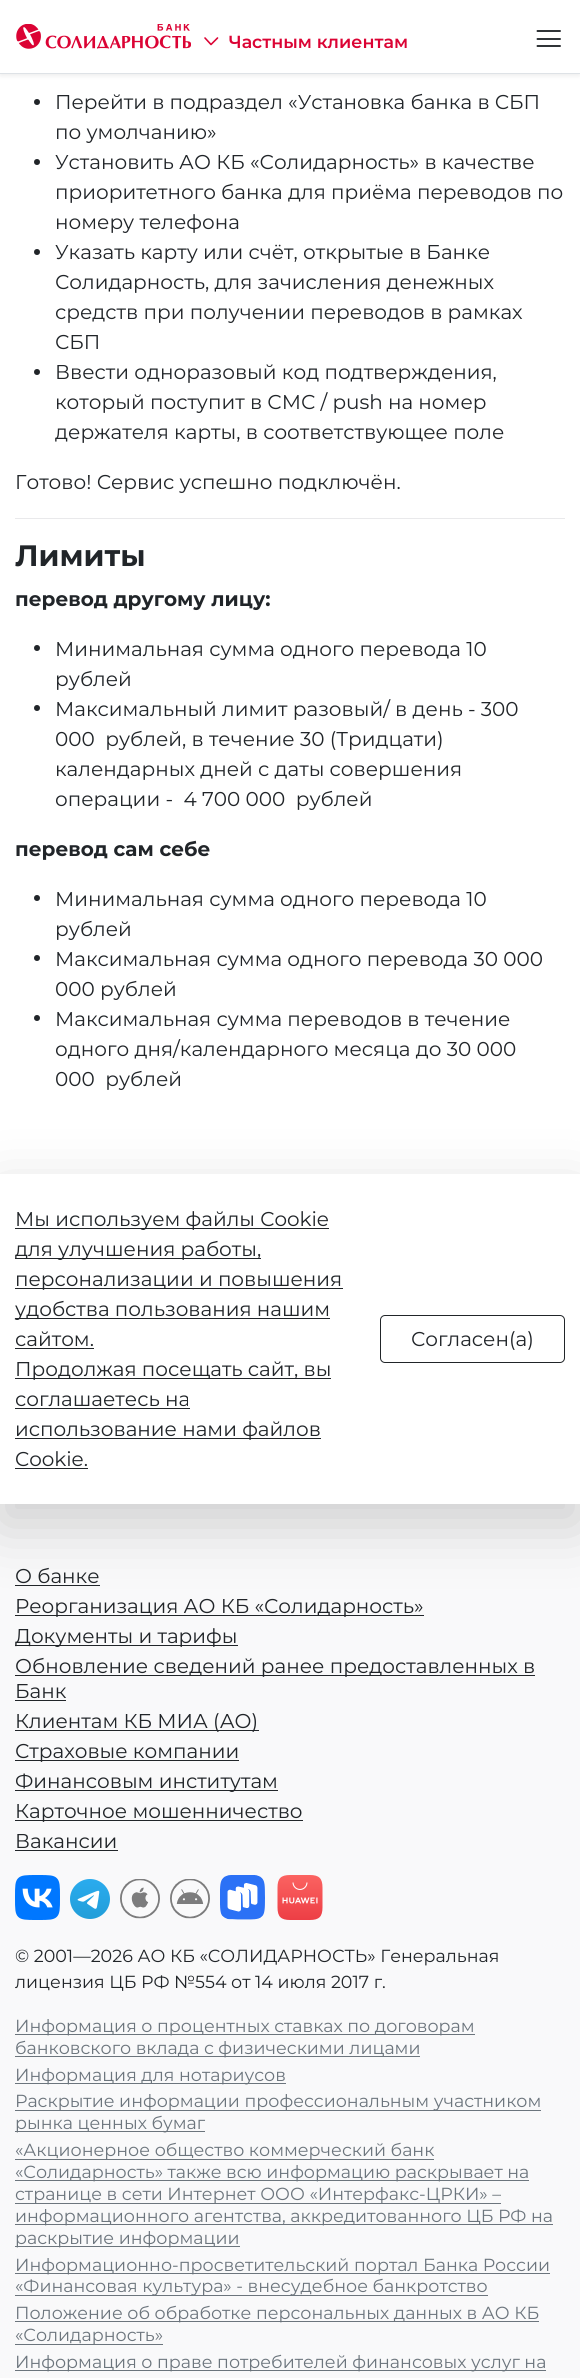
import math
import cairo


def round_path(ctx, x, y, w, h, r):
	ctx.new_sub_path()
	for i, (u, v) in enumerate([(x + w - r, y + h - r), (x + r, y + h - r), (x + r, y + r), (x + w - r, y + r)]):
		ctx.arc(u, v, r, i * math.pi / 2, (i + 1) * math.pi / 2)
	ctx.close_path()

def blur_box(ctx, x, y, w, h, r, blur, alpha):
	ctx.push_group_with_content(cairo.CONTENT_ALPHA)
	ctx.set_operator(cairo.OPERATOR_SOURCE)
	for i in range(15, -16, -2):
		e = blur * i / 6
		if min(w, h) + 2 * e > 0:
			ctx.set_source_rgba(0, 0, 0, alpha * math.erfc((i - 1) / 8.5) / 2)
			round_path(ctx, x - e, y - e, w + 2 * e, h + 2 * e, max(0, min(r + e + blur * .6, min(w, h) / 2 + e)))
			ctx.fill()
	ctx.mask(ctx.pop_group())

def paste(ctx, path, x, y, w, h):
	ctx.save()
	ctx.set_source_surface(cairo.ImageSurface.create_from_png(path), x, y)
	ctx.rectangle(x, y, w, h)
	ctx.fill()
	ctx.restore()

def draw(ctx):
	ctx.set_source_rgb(1, 1, 1)
	ctx.paint()
	ctx.set_source_rgb(0, 0, 0)
	blur_box(ctx, 0, 3, 580, 73, 0, 2.5, 0.07)
	ctx.set_source_rgb(1, 1, 1)
	ctx.rectangle(0, 0, 580, 73)
	ctx.fill()
	ctx.set_source_rgb(0.871, 0.886, 0.902)
	ctx.rectangle(0, 73, 580, 1)
	ctx.fill()
	paste(ctx, 'media/1.png', 16, 24, 175, 25)
	ctx.new_path()
	ctx.move_to(205, 38)
	ctx.line_to(211, 44.5)
	ctx.line_to(217.5, 38)
	ctx.set_source_rgb(0.859, 0.012, 0.204)
	ctx.set_line_width(1.6)
	ctx.set_line_cap(cairo.LINE_CAP_ROUND)
	ctx.set_line_join(cairo.LINE_JOIN_ROUND)
	ctx.stroke()
	ctx.select_font_face('Montserrat SemiBold')
	ctx.set_font_size(17.5)
	ctx.move_to(229, 48)
	ctx.show_text('Частным клиентам')
	ctx.new_path()
	ctx.move_to(537.5, 39)
	ctx.line_to(560, 39)
	ctx.move_to(537.5, 31)
	ctx.line_to(560, 31)
	ctx.move_to(537.5, 46)
	ctx.line_to(560, 46)
	ctx.set_source_rgb(0.129, 0.145, 0.161)
	ctx.set_line_width(1.9)
	ctx.stroke()
	ctx.arc(37, 102, 3, 0, 2 * math.pi)
	ctx.fill()
	ctx.select_font_face('Montserrat')
	ctx.set_font_size(20)
	ctx.move_to(55, 109)
	ctx.show_text('Перейти в подраздел «Установка банка в СБП')
	ctx.move_to(55, 139)
	ctx.show_text('по умолчанию»')
	ctx.new_path()
	ctx.arc(37, 162, 3, 0, 2 * math.pi)
	ctx.fill()
	for x, y, s in [
		(55, 169, 'Установить АО КБ «Солидарность» в качестве'),
		(55, 199, 'приоритетного банка для приёма переводов по'),
		(55, 229, 'номеру телефона'),
	]:
		ctx.move_to(x, y)
		ctx.show_text(s)
	ctx.new_path()
	ctx.arc(37, 252, 3, 0, 2 * math.pi)
	ctx.fill()
	for x, y, s in [
		(55, 259, 'Указать карту или счёт, открытые в Банке'),
		(55, 289, 'Солидарность, для зачисления денежных'),
		(55, 319, 'средств при получении переводов в рамках'),
		(55, 349, 'СБП'),
	]:
		ctx.move_to(x, y)
		ctx.show_text(s)
	ctx.new_path()
	ctx.arc(37, 372, 3, 0, 2 * math.pi)
	ctx.fill()
	for x, y, s in [
		(55, 379, 'Ввести одноразовый код подтверждения,'),
		(55, 409, 'который поступит в СМС / push на номер'),
		(55, 439, 'держателя карты, в соответствующее поле'),
		(15, 489, 'Готово! Сервис успешно подключён.'),
	]:
		ctx.move_to(x, y)
		ctx.show_text(s)
	ctx.set_source_rgb(0.914, 0.914, 0.918)
	ctx.rectangle(15, 518, 550, 1)
	ctx.fill()
	ctx.select_font_face('Montserrat', cairo.FONT_SLANT_NORMAL, cairo.FONT_WEIGHT_BOLD)
	ctx.set_font_size(29.5)
	ctx.set_source_rgb(0.129, 0.145, 0.161)
	ctx.move_to(15, 566)
	ctx.show_text('Лимиты')
	ctx.set_font_size(20)
	ctx.move_to(15, 606)
	ctx.show_text('перевод другому лицу:')
	ctx.new_path()
	ctx.arc(37, 648, 3, 0, 2 * math.pi)
	ctx.fill()
	ctx.select_font_face('Montserrat')
	ctx.move_to(55, 656)
	ctx.show_text('Минимальная сумма одного перевода 10')
	ctx.move_to(55, 686)
	ctx.show_text('рублей')
	ctx.new_path()
	ctx.arc(37, 708, 3, 0, 2 * math.pi)
	ctx.fill()
	for x, y, s in [
		(55, 716, 'Максимальный лимит разовый/ в день - 300'),
		(55, 746, '000  рублей, в течение 30 (Тридцати)'),
		(55, 776, 'календарных дней с даты совершения'),
		(55, 806, 'операции -  4 700 000  рублей'),
	]:
		ctx.move_to(x, y)
		ctx.show_text(s)
	ctx.select_font_face('Montserrat', cairo.FONT_SLANT_NORMAL, cairo.FONT_WEIGHT_BOLD)
	ctx.move_to(15, 856)
	ctx.show_text('перевод сам себе')
	ctx.new_path()
	ctx.arc(37, 898, 3, 0, 2 * math.pi)
	ctx.fill()
	ctx.select_font_face('Montserrat')
	ctx.move_to(55, 906)
	ctx.show_text('Минимальная сумма одного перевода 10')
	ctx.move_to(55, 936)
	ctx.show_text('рублей')
	ctx.new_path()
	ctx.arc(37, 958, 3, 0, 2 * math.pi)
	ctx.fill()
	ctx.move_to(55, 966)
	ctx.show_text('Максимальная сумма одного перевода 30 000')
	ctx.move_to(55, 996)
	ctx.show_text('000 рублей')
	ctx.new_path()
	ctx.arc(37, 1018, 3, 0, 2 * math.pi)
	ctx.fill()
	for x, y, s in [
		(55, 1026, 'Максимальная сумма переводов в течение'),
		(55, 1056, 'одного дня/календарного месяца до 30 000'),
		(55, 1086, '000  рублей'),
	]:
		ctx.move_to(x, y)
		ctx.show_text(s)
	ctx.set_source_rgb(0.973, 0.976, 0.98)
	ctx.rectangle(0, 1504, 580, 874)
	ctx.fill()
	ctx.set_source_rgb(0.129, 0.145, 0.161)
	ctx.rectangle(15, 1585, 85, 1)
	ctx.fill()
	ctx.set_source_rgb(0, 0, 0)
	blur_box(ctx, 0, 1194, 580, 330, 0, 30, 0.18)
	ctx.set_source_rgb(1, 1, 1)
	ctx.rectangle(0, 1174, 580, 330)
	ctx.fill()
	ctx.set_source_rgb(0.129, 0.145, 0.161)
	ctx.rectangle(15, 1228, 314, 1)
	ctx.fill()
	ctx.move_to(15, 1226)
	ctx.show_text('Мы используем файлы Cookie')
	ctx.rectangle(15, 1258, 246, 1)
	ctx.fill()
	ctx.move_to(15, 1256)
	ctx.show_text('для улучшения работы,')
	ctx.rectangle(15, 1288, 328, 1)
	ctx.fill()
	ctx.move_to(15, 1286)
	ctx.show_text('персонализации и повышения')
	ctx.rectangle(15, 1318, 315, 1)
	ctx.fill()
	ctx.move_to(15, 1316)
	ctx.show_text('удобства пользования нашим')
	ctx.move_to(15, 1346)
	ctx.show_text('сайтом.')
	ctx.rectangle(15, 1348, 79, 1)
	ctx.fill()
	ctx.rectangle(15, 1378, 316, 1)
	ctx.fill()
	ctx.move_to(15, 1376)
	ctx.show_text('Продолжая посещать сайт, вы')
	ctx.move_to(15, 1406)
	ctx.show_text('соглашаетесь на')
	ctx.rectangle(15, 1408, 175, 1)
	ctx.fill()
	ctx.rectangle(15, 1438, 306, 1)
	ctx.fill()
	ctx.move_to(15, 1436)
	ctx.show_text('использование нами файлов')
	ctx.move_to(15, 1466)
	ctx.show_text('Cookie.')
	ctx.rectangle(15, 1468, 73, 1)
	ctx.fill()
	round_path(ctx, 380.5, 1315.5, 184, 47, 4.5)
	ctx.set_line_width(1)
	ctx.set_line_cap(cairo.LINE_CAP_BUTT)
	ctx.set_line_join(cairo.LINE_JOIN_MITER)
	ctx.stroke()
	ctx.move_to(411, 1346)
	ctx.show_text('Согласен(а)')
	ctx.move_to(15, 1583)
	ctx.show_text('О банке')
	ctx.rectangle(15, 1615, 409, 1)
	ctx.fill()
	ctx.move_to(15, 1613)
	ctx.show_text('Реорганизация АО КБ «Солидарность»')
	ctx.rectangle(15, 1645, 223, 1)
	ctx.fill()
	ctx.move_to(15, 1643)
	ctx.show_text('Документы и тарифы')
	ctx.rectangle(15, 1675, 520, 1)
	ctx.fill()
	ctx.move_to(15, 1673)
	ctx.show_text('Обновление сведений ранее предоставленных в')
	ctx.move_to(15, 1698)
	ctx.show_text('Банк')
	ctx.rectangle(15, 1700, 51, 1)
	ctx.fill()
	ctx.rectangle(15, 1730, 244, 1)
	ctx.fill()
	ctx.move_to(15, 1728)
	ctx.show_text('Клиентам КБ МИА (АО)')
	ctx.rectangle(15, 1760, 224, 1)
	ctx.fill()
	ctx.move_to(15, 1758)
	ctx.show_text('Страховые компании')
	ctx.rectangle(15, 1790, 263, 1)
	ctx.fill()
	ctx.move_to(15, 1788)
	ctx.show_text('Финансовым институтам')
	ctx.rectangle(15, 1820, 288, 1)
	ctx.fill()
	ctx.move_to(15, 1818)
	ctx.show_text('Карточное мошенничество')
	ctx.move_to(15, 1848)
	ctx.show_text('Вакансии')
	ctx.rectangle(15, 1850, 103, 1)
	ctx.fill()
	paste(ctx, 'media/2.png', 15, 1875, 45, 45)
	paste(ctx, 'media/3.png', 70, 1879, 40, 40)
	paste(ctx, 'media/4.png', 120, 1879, 40, 40)
	paste(ctx, 'media/5.png', 170, 1879, 40, 40)
	paste(ctx, 'media/6.png', 220, 1875, 45, 45)
	paste(ctx, 'media/7.png', 277, 1875, 46, 45)
	ctx.set_font_size(17.5)
	ctx.move_to(15, 1962)
	ctx.show_text('© 2001—2026 АО КБ «СОЛИДАРНОСТЬ» Генеральная')
	ctx.move_to(15, 1988)
	ctx.show_text('лицензия ЦБ РФ №554 от 14 июля 2017 г.')
	ctx.set_source_rgb(0.424, 0.459, 0.49)
	ctx.rectangle(15, 2034, 460, 1)
	ctx.fill()
	ctx.move_to(15, 2032)
	ctx.show_text('Информация о процентных ставках по договорам')
	ctx.rectangle(15, 2056, 405, 1)
	ctx.fill()
	ctx.move_to(15, 2054)
	ctx.show_text('банковского вклада с физическими лицами')
	ctx.rectangle(15, 2083, 271, 1)
	ctx.fill()
	ctx.move_to(15, 2081)
	ctx.show_text('Информация для нотариусов')
	ctx.rectangle(15, 2110, 526, 1)
	ctx.fill()
	ctx.move_to(15, 2107)
	ctx.show_text('Раскрытие информации профессиональным участником')
	ctx.rectangle(15, 2131, 190, 1)
	ctx.fill()
	ctx.move_to(15, 2129)
	ctx.show_text('рынка ценных бумаг')
	ctx.rectangle(15, 2159, 419, 1)
	ctx.fill()
	ctx.move_to(15, 2156)
	ctx.show_text('«Акционерное общество коммерческий банк')
	ctx.rectangle(15, 2180, 514, 1)
	ctx.fill()
	ctx.move_to(15, 2178)
	ctx.show_text('«Солидарность» также всю информацию раскрывает на')
	ctx.rectangle(15, 2203, 486, 1)
	ctx.fill()
	ctx.move_to(15, 2200)
	ctx.show_text('странице в сети Интернет ООО «Интерфакс-ЦРКИ» –')
	ctx.rectangle(15, 2224, 538, 1)
	ctx.fill()
	ctx.move_to(15, 2222)
	ctx.show_text('информационного агентства, аккредитованного ЦБ РФ на')
	ctx.rectangle(15, 2246, 225, 1)
	ctx.fill()
	ctx.move_to(15, 2244)
	ctx.show_text('раскрытие информации')
	ctx.rectangle(15, 2273, 535, 1)
	ctx.fill()
	ctx.move_to(15, 2271)
	ctx.show_text('Информационно-просветительский портал Банка России')
	ctx.rectangle(15, 2295, 473, 1)
	ctx.fill()
	ctx.move_to(15, 2292)
	ctx.show_text('«Финансовая культура» - внесудебное банкротство')
	ctx.rectangle(15, 2321, 524, 1)
	ctx.fill()
	ctx.move_to(15, 2319)
	ctx.show_text('Положение об обработке персональных данных в АО КБ')
	ctx.rectangle(15, 2344, 148, 1)
	ctx.fill()
	ctx.move_to(15, 2341)
	ctx.show_text('«Солидарность»')
	ctx.rectangle(15, 2370, 531, 1)
	ctx.fill()
	ctx.move_to(15, 2368)
	ctx.show_text('Информация о праве потребителей финансовых услуг на')


surface = cairo.ImageSurface(cairo.FORMAT_RGB24, 580, 2378)
ctx = cairo.Context(surface)
options = cairo.FontOptions()
options.set_hint_metrics(cairo.HINT_METRICS_OFF)
options.set_hint_style(cairo.HINT_STYLE_NONE)
ctx.set_font_options(options)
ctx.set_miter_limit(4)
draw(ctx)
surface.write_to_png('image.png')
